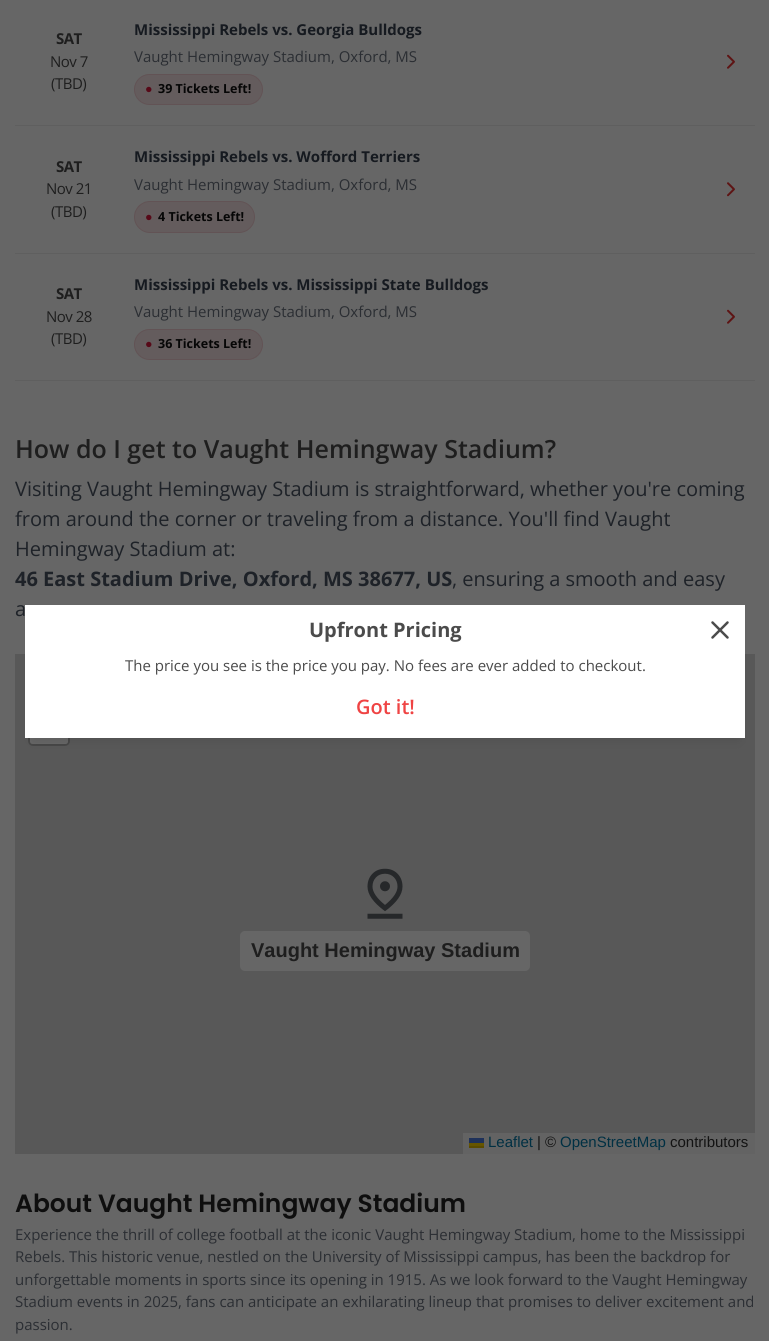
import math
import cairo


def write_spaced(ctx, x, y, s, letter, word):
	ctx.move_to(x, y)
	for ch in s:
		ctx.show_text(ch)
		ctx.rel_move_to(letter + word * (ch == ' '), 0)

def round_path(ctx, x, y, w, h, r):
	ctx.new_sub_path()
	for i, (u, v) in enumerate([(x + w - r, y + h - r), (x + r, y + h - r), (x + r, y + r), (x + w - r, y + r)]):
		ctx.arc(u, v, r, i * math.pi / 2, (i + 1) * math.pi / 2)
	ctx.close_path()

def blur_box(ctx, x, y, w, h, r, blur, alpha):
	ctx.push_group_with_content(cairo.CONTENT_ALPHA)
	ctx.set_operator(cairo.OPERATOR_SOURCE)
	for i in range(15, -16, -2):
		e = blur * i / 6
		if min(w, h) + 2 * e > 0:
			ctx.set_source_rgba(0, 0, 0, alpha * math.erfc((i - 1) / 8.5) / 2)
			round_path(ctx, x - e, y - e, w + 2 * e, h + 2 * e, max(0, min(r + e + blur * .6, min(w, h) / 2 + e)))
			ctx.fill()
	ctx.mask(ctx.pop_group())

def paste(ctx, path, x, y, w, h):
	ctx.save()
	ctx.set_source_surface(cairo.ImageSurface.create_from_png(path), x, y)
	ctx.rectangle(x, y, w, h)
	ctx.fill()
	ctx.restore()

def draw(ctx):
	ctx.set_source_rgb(0.4, 0.4, 0.4)
	ctx.paint()
	ctx.set_source_rgb(0.373, 0.373, 0.373)
	ctx.rectangle(15, 125, 740, 1)
	ctx.fill()
	ctx.select_font_face('Open Sans', cairo.FONT_SLANT_NORMAL, cairo.FONT_WEIGHT_BOLD)
	ctx.set_font_size(15)
	ctx.set_source_rgb(0.118, 0.118, 0.118)
	write_spaced(ctx, 56, 44, 'SAT', -0.5, 0)
	ctx.select_font_face('Open Sans')
	write_spaced(ctx, 50, 67, 'Nov 7', -0.5, 0)
	write_spaced(ctx, 51, 89, '(TBD)', -0.5, 0)
	ctx.select_font_face('Open Sans', cairo.FONT_SLANT_NORMAL, cairo.FONT_WEIGHT_BOLD)
	ctx.set_source_rgb(0.086, 0.102, 0.125)
	ctx.move_to(134, 35)
	ctx.show_text('Mississippi Rebels vs. Georgia Bulldogs')
	ctx.select_font_face('Open Sans')
	ctx.set_source_rgb(0.169, 0.18, 0.2)
	ctx.move_to(134, 62)
	ctx.show_text('Vaught Hemingway Stadium, Oxford, MS')
	ctx.set_source_rgb(0.392, 0.361, 0.365)
	round_path(ctx, 134, 74, 129, 31, 15.5)
	ctx.fill()
	round_path(ctx, 134.5, 74.5, 128, 30, 15)
	ctx.set_source_rgba(0.341, 0.039, 0.094, 0.11)
	ctx.set_line_width(1)
	ctx.stroke()
	ctx.select_font_face('Liberation Sans', cairo.FONT_SLANT_NORMAL, cairo.FONT_WEIGHT_BOLD)
	ctx.set_font_size(12.5)
	ctx.set_source_rgb(0.341, 0.039, 0.094)
	ctx.move_to(145, 93)
	ctx.show_text('●')
	ctx.select_font_face('Open Sans', cairo.FONT_SLANT_NORMAL, cairo.FONT_WEIGHT_BOLD)
	ctx.set_source_rgb(0.027, 0.027, 0.027)
	ctx.move_to(158, 93)
	ctx.show_text('39 Tickets Left!')
	paste(ctx, 'media/1.png', 727, 54, 8, 15)
	ctx.set_source_rgb(0.373, 0.373, 0.373)
	ctx.rectangle(15, 253, 740, 1)
	ctx.fill()
	ctx.set_font_size(15)
	ctx.set_source_rgb(0.118, 0.118, 0.118)
	write_spaced(ctx, 56, 172, 'SAT', -0.5, 0)
	ctx.select_font_face('Open Sans')
	write_spaced(ctx, 46, 194, 'Nov 21', -0.5, 0)
	write_spaced(ctx, 51, 217, '(TBD)', -0.5, 0)
	ctx.select_font_face('Open Sans', cairo.FONT_SLANT_NORMAL, cairo.FONT_WEIGHT_BOLD)
	ctx.set_source_rgb(0.086, 0.102, 0.125)
	ctx.move_to(134, 162)
	ctx.show_text('Mississippi Rebels vs. Wofford Terriers')
	ctx.select_font_face('Open Sans')
	ctx.set_source_rgb(0.169, 0.18, 0.2)
	ctx.move_to(134, 190)
	ctx.show_text('Vaught Hemingway Stadium, Oxford, MS')
	ctx.set_source_rgb(0.392, 0.361, 0.365)
	round_path(ctx, 134, 201, 121, 32, 16)
	ctx.fill()
	round_path(ctx, 134.5, 201.5, 120, 31, 15.5)
	ctx.set_source_rgba(0.341, 0.039, 0.094, 0.11)
	ctx.stroke()
	ctx.select_font_face('Liberation Sans', cairo.FONT_SLANT_NORMAL, cairo.FONT_WEIGHT_BOLD)
	ctx.set_font_size(12.5)
	ctx.set_source_rgb(0.341, 0.039, 0.094)
	ctx.move_to(145, 221)
	ctx.show_text('●')
	ctx.select_font_face('Open Sans', cairo.FONT_SLANT_NORMAL, cairo.FONT_WEIGHT_BOLD)
	ctx.set_source_rgb(0.027, 0.027, 0.027)
	ctx.move_to(158, 221)
	ctx.show_text('4 Tickets Left!')
	paste(ctx, 'media/2.png', 727, 182, 8, 15)
	ctx.set_source_rgb(0.373, 0.373, 0.373)
	ctx.rectangle(15, 380, 740, 1)
	ctx.fill()
	ctx.set_font_size(15)
	ctx.set_source_rgb(0.118, 0.118, 0.118)
	write_spaced(ctx, 56, 299, 'SAT', -0.5, 0)
	ctx.select_font_face('Open Sans')
	write_spaced(ctx, 46, 322, 'Nov 28', -0.5, 0)
	write_spaced(ctx, 51, 344, '(TBD)', -0.5, 0)
	ctx.select_font_face('Open Sans', cairo.FONT_SLANT_NORMAL, cairo.FONT_WEIGHT_BOLD)
	ctx.set_source_rgb(0.086, 0.102, 0.125)
	ctx.move_to(134, 290)
	ctx.show_text('Mississippi Rebels vs. Mississippi State Bulldogs')
	ctx.select_font_face('Open Sans')
	ctx.set_source_rgb(0.169, 0.18, 0.2)
	ctx.move_to(134, 317)
	ctx.show_text('Vaught Hemingway Stadium, Oxford, MS')
	ctx.set_source_rgb(0.392, 0.361, 0.365)
	round_path(ctx, 134, 329, 129, 31, 15.5)
	ctx.fill()
	round_path(ctx, 134.5, 329.5, 128, 30, 15)
	ctx.set_source_rgba(0.341, 0.039, 0.094, 0.11)
	ctx.stroke()
	ctx.select_font_face('Liberation Sans', cairo.FONT_SLANT_NORMAL, cairo.FONT_WEIGHT_BOLD)
	ctx.set_font_size(12.5)
	ctx.set_source_rgb(0.341, 0.039, 0.094)
	ctx.move_to(145, 348)
	ctx.show_text('●')
	ctx.select_font_face('Open Sans', cairo.FONT_SLANT_NORMAL, cairo.FONT_WEIGHT_BOLD)
	ctx.set_source_rgb(0.027, 0.027, 0.027)
	ctx.move_to(158, 348)
	ctx.show_text('36 Tickets Left!')
	paste(ctx, 'media/1.png', 727, 309, 8, 15)
	ctx.select_font_face('Open Sans SemiBold')
	ctx.set_font_size(25)
	ctx.set_source_rgb(0.118, 0.118, 0.118)
	ctx.move_to(15, 458)
	ctx.show_text('How do I get to Vaught Hemingway Stadium?')
	ctx.select_font_face('Open Sans')
	ctx.set_font_size(20)
	ctx.set_source_rgb(0.118, 0.133, 0.157)
	for x, y, s in [
		(15, 496, 'Visiting Vaught Hemingway Stadium is straightforward, whether you\'re coming'),
		(15, 526, 'from around the corner or traveling from a distance. You\'ll find Vaught'),
		(15, 556, 'Hemingway Stadium at:'),
	]:
		ctx.move_to(x, y)
		ctx.show_text(s)
	ctx.select_font_face('Open Sans', cairo.FONT_SLANT_NORMAL, cairo.FONT_WEIGHT_BOLD)
	ctx.move_to(15, 586)
	ctx.show_text('46 East Stadium Drive, Oxford, MS 38677, US')
	ctx.select_font_face('Open Sans')
	ctx.move_to(452, 586)
	ctx.show_text(', ensuring a smooth and easy')
	ctx.move_to(15, 616)
	ctx.show_text('a')
	ctx.set_source_rgb(0.345, 0.345, 0.345)
	ctx.rectangle(15, 654, 740, 500)
	ctx.fill()
	paste(ctx, 'media/3.png', 367, 868, 36, 51)
	ctx.set_source_rgb(0.4, 0.4, 0.4)
	round_path(ctx, 240, 931, 290, 40, 5)
	ctx.fill()
	ctx.select_font_face('Liberation Sans', cairo.FONT_SLANT_NORMAL, cairo.FONT_WEIGHT_BOLD)
	ctx.set_source_rgb(0.118, 0.118, 0.118)
	ctx.move_to(251, 957)
	ctx.show_text('Vaught Hemingway Stadium')
	round_path(ctx, 29.5, 667.5, 39, 77, 3.5)
	ctx.set_source_rgb(0.278, 0.278, 0.278)
	ctx.set_line_width(3)
	ctx.stroke()
	ctx.set_source_rgb(0.4, 0.4, 0.4)
	ctx.new_path()
	ctx.move_to(30, 706)
	ctx.line_to(68, 706)
	ctx.line_to(68, 741.5)
	ctx.curve_to(68, 743, 67, 744, 65.5, 744)
	ctx.line_to(32.5, 744)
	ctx.curve_to(31, 744, 30, 743, 30, 741.5)
	ctx.close_path()
	ctx.fill()
	ctx.set_source_rgb(0.388, 0.388, 0.388)
	ctx.rectangle(463, 1133, 292, 21)
	ctx.fill()
	ctx.select_font_face('Liberation Sans')
	ctx.set_font_size(15)
	ctx.set_source_rgb(0, 0.188, 0.263)
	ctx.move_to(488, 1147)
	ctx.show_text('Leaflet')
	ctx.set_source_rgb(0.118, 0.192, 0.353)
	ctx.rectangle(469, 1138, 15, 5)
	ctx.fill()
	ctx.set_source_rgb(0.4, 0.333, 0)
	ctx.rectangle(469, 1143, 15, 3)
	ctx.fill()
	ctx.set_source_rgb(0.353, 0.294, 0)
	ctx.rectangle(469, 1146, 15, 2)
	ctx.fill()
	ctx.set_source_rgb(0.078, 0.078, 0.078)
	ctx.move_to(537, 1147)
	ctx.show_text('| ©')
	ctx.set_source_rgb(0, 0.188, 0.263)
	ctx.move_to(560, 1147)
	ctx.show_text('OpenStreetMap')
	ctx.set_source_rgb(0.078, 0.078, 0.078)
	ctx.move_to(670, 1147)
	ctx.show_text('contributors')
	ctx.select_font_face('Poppins SemiBold')
	ctx.set_font_size(25)
	ctx.set_source_rgb(0.055, 0.055, 0.055)
	ctx.move_to(15, 1212)
	ctx.show_text('About Vaught Hemingway Stadium')
	ctx.select_font_face('Open Sans')
	ctx.set_font_size(15)
	ctx.set_source_rgb(0.169, 0.18, 0.2)
	for x, y, s in [
		(15, 1240, 'Experience the thrill of college football at the iconic Vaught Hemingway Stadium, home to the Mississippi'),
		(15, 1262, 'Rebels. This historic venue, nestled on the University of Mississippi campus, has been the backdrop for'),
		(15, 1285, 'unforgettable moments in sports since its opening in 1915. As we look forward to the Vaught Hemingway'),
		(15, 1307, 'Stadium events in 2025, fans can anticipate an exhilarating lineup that promises to deliver excitement and'),
		(15, 1330, 'passion.'),
	]:
		ctx.move_to(x, y)
		ctx.show_text(s)
	ctx.set_source_rgb(0, 0, 0)
	blur_box(ctx, 33, 623, 705, 117, 0, 6, 0.1)
	ctx.set_source_rgb(1, 1, 1)
	ctx.rectangle(25, 605, 720, 133)
	ctx.fill()
	ctx.select_font_face('Open Sans', cairo.FONT_SLANT_NORMAL, cairo.FONT_WEIGHT_BOLD)
	ctx.set_font_size(20)
	ctx.set_source_rgb(0.294, 0.294, 0.294)
	ctx.move_to(309, 637)
	ctx.show_text('Upfront Pricing')
	ctx.new_path()
	ctx.move_to(712.5, 637.5)
	ctx.line_to(727.5, 622.5)
	ctx.move_to(712.5, 622.5)
	ctx.line_to(727.5, 637.5)
	ctx.set_line_width(2.5)
	ctx.set_line_cap(cairo.LINE_CAP_ROUND)
	ctx.set_line_join(cairo.LINE_JOIN_ROUND)
	ctx.stroke()
	ctx.select_font_face('Open Sans')
	ctx.set_font_size(15)
	ctx.move_to(125, 671)
	ctx.show_text('The price you see is the price you pay. No fees are ever added to checkout.')
	ctx.select_font_face('Open Sans SemiBold')
	ctx.set_font_size(20)
	ctx.set_source_rgb(0.937, 0.267, 0.267)
	ctx.move_to(356, 714)
	ctx.show_text('Got it!')


surface = cairo.ImageSurface(cairo.FORMAT_RGB24, 769, 1341)
ctx = cairo.Context(surface)
options = cairo.FontOptions()
options.set_hint_metrics(cairo.HINT_METRICS_OFF)
options.set_hint_style(cairo.HINT_STYLE_NONE)
ctx.set_font_options(options)
ctx.set_miter_limit(4)
draw(ctx)
surface.write_to_png('image.png')
